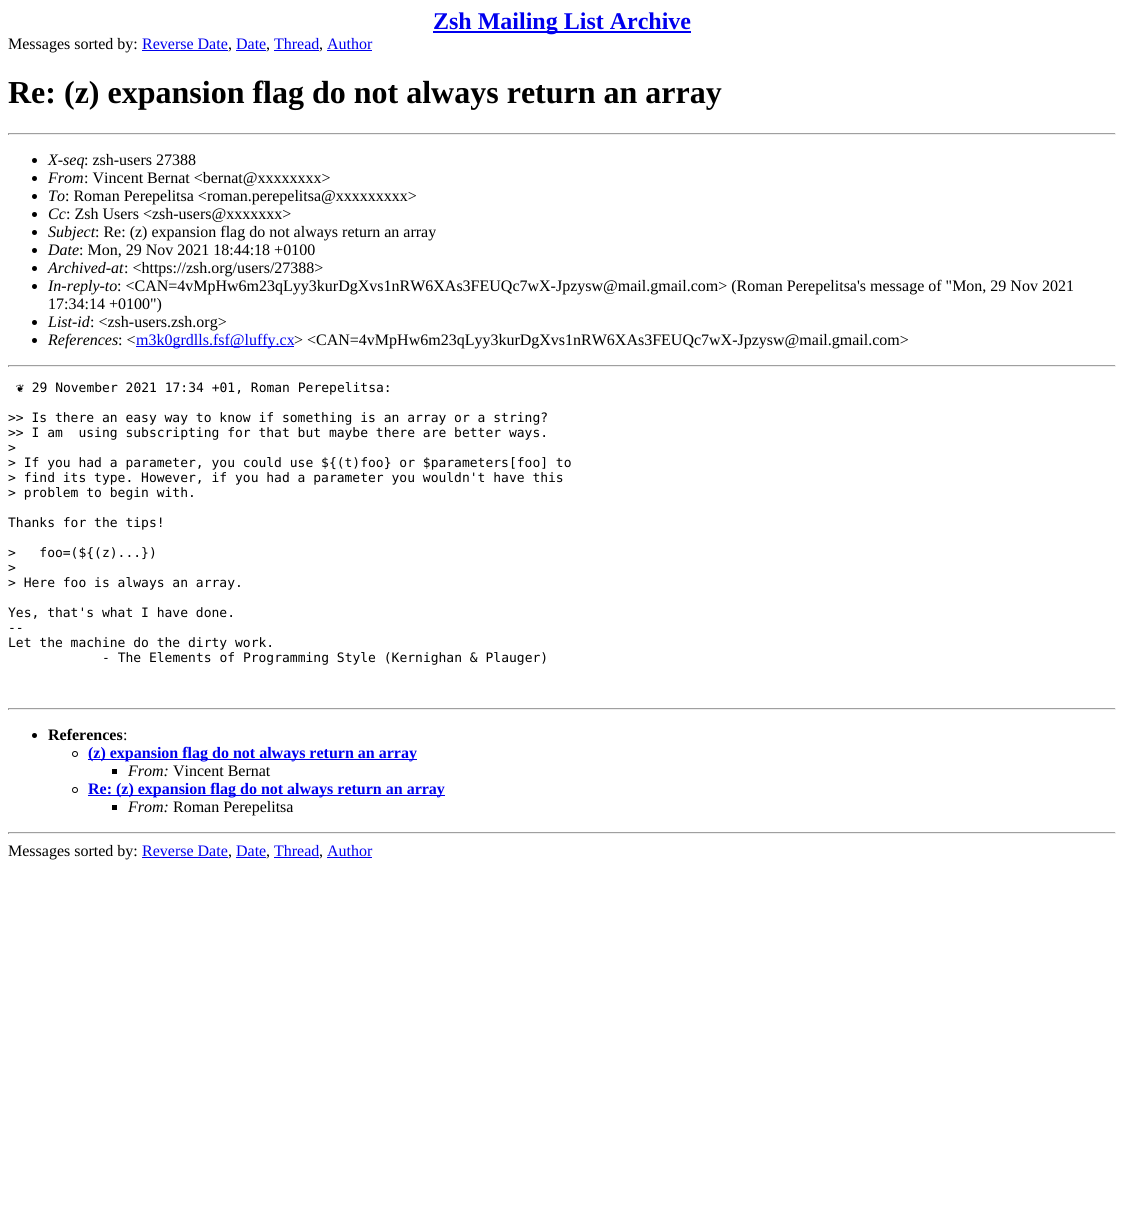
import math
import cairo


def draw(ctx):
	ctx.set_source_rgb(1, 1, 1)
	ctx.paint()
	ctx.set_source_rgb(0, 0, 0.933)
	ctx.rectangle(433, 31, 258, 2)
	ctx.fill()
	ctx.select_font_face('Liberation Serif', cairo.FONT_SLANT_NORMAL, cairo.FONT_WEIGHT_BOLD)
	ctx.set_font_size(24)
	ctx.move_to(433, 29)
	ctx.show_text('Zsh Mailing List Archive')
	ctx.select_font_face('Liberation Serif')
	ctx.set_font_size(16)
	ctx.set_source_rgb(0, 0, 0)
	ctx.move_to(8, 49)
	ctx.show_text('Messages sorted by:')
	ctx.set_source_rgb(0, 0, 0.933)
	ctx.move_to(142, 49)
	ctx.show_text('Reverse Date')
	ctx.rectangle(142, 50, 86, 1)
	ctx.fill()
	ctx.set_source_rgb(0, 0, 0)
	ctx.move_to(228, 49)
	ctx.show_text(',')
	ctx.set_source_rgb(0, 0, 0.933)
	ctx.move_to(236, 49)
	ctx.show_text('Date')
	ctx.rectangle(236, 50, 30, 1)
	ctx.fill()
	ctx.set_source_rgb(0, 0, 0)
	ctx.move_to(266, 49)
	ctx.show_text(',')
	ctx.set_source_rgb(0, 0, 0.933)
	ctx.move_to(274, 49)
	ctx.show_text('Thread')
	ctx.rectangle(274, 50, 45, 1)
	ctx.fill()
	ctx.set_source_rgb(0, 0, 0)
	ctx.move_to(319, 49)
	ctx.show_text(',')
	ctx.set_source_rgb(0, 0, 0.933)
	ctx.move_to(327, 49)
	ctx.show_text('Author')
	ctx.rectangle(327, 50, 45, 1)
	ctx.fill()
	ctx.select_font_face('Liberation Serif', cairo.FONT_SLANT_NORMAL, cairo.FONT_WEIGHT_BOLD)
	ctx.set_font_size(32)
	ctx.set_source_rgb(0, 0, 0)
	ctx.move_to(8, 103)
	ctx.show_text('Re: (z) expansion flag do not always return an array')
	ctx.set_source_rgb(0.624, 0.624, 0.624)
	ctx.rectangle(8, 133, 1108, 1)
	ctx.fill()
	ctx.set_source_rgb(0.933, 0.933, 0.933)
	ctx.rectangle(1115, 133, 1, 2)
	ctx.rectangle(8, 134, 1108, 1)
	ctx.fill()
	ctx.set_source_rgb(0.624, 0.624, 0.624)
	ctx.rectangle(8, 133, 1, 2)
	ctx.fill()
	ctx.set_source_rgb(0, 0, 0)
	ctx.arc(34.5, 160.5, 2.5, 0, 2 * math.pi)
	ctx.fill()
	ctx.select_font_face('Liberation Serif', cairo.FONT_SLANT_ITALIC)
	ctx.set_font_size(16)
	ctx.move_to(48, 165)
	ctx.show_text('X-seq')
	ctx.select_font_face('Liberation Serif')
	ctx.move_to(84, 165)
	ctx.show_text(': zsh-users 27388')
	ctx.new_path()
	ctx.arc(34.5, 178.5, 2.5, 0, 2 * math.pi)
	ctx.fill()
	ctx.select_font_face('Liberation Serif', cairo.FONT_SLANT_ITALIC)
	ctx.move_to(48, 183)
	ctx.show_text('From')
	ctx.select_font_face('Liberation Serif')
	ctx.move_to(84, 183)
	ctx.show_text(': Vincent Bernat <bernat@xxxxxxxx>')
	ctx.new_path()
	ctx.arc(34.5, 196.5, 2.5, 0, 2 * math.pi)
	ctx.fill()
	ctx.select_font_face('Liberation Serif', cairo.FONT_SLANT_ITALIC)
	ctx.move_to(48, 201)
	ctx.show_text('To')
	ctx.select_font_face('Liberation Serif')
	ctx.move_to(65, 201)
	ctx.show_text(': Roman Perepelitsa <roman.perepelitsa@xxxxxxxxx>')
	ctx.new_path()
	ctx.arc(34.5, 214.5, 2.5, 0, 2 * math.pi)
	ctx.fill()
	ctx.select_font_face('Liberation Serif', cairo.FONT_SLANT_ITALIC)
	ctx.move_to(48, 219)
	ctx.show_text('Cc')
	ctx.select_font_face('Liberation Serif')
	ctx.move_to(66, 219)
	ctx.show_text(': Zsh Users <zsh-users@xxxxxxx>')
	ctx.new_path()
	ctx.arc(34.5, 232.5, 2.5, 0, 2 * math.pi)
	ctx.fill()
	ctx.select_font_face('Liberation Serif', cairo.FONT_SLANT_ITALIC)
	ctx.move_to(48, 237)
	ctx.show_text('Subject')
	ctx.select_font_face('Liberation Serif')
	ctx.move_to(95, 237)
	ctx.show_text(': Re: (z) expansion flag do not always return an array')
	ctx.new_path()
	ctx.arc(34.5, 250.5, 2.5, 0, 2 * math.pi)
	ctx.fill()
	ctx.select_font_face('Liberation Serif', cairo.FONT_SLANT_ITALIC)
	ctx.move_to(48, 255)
	ctx.show_text('Date')
	ctx.select_font_face('Liberation Serif')
	ctx.move_to(79, 255)
	ctx.show_text(': Mon, 29 Nov 2021 18:44:18 +0100')
	ctx.new_path()
	ctx.arc(34.5, 268.5, 2.5, 0, 2 * math.pi)
	ctx.fill()
	ctx.select_font_face('Liberation Serif', cairo.FONT_SLANT_ITALIC)
	ctx.move_to(48, 273)
	ctx.show_text('Archived-at')
	ctx.select_font_face('Liberation Serif')
	ctx.move_to(124, 273)
	ctx.show_text(': <https://zsh.org/users/27388>')
	ctx.new_path()
	ctx.arc(34.5, 286.5, 2.5, 0, 2 * math.pi)
	ctx.fill()
	ctx.select_font_face('Liberation Serif', cairo.FONT_SLANT_ITALIC)
	ctx.move_to(48, 291)
	ctx.show_text('In-reply-to')
	ctx.select_font_face('Liberation Serif')
	ctx.move_to(117, 291)
	ctx.show_text(': <CAN=4vMpHw6m23qLyy3kurDgXvs1nRW6XAs3FEUQc7wX-Jpzysw@mail.gmail.com> (Roman Perepelitsa\'s message of "Mon, 29 Nov 2021')
	ctx.move_to(48, 309)
	ctx.show_text('17:34:14 +0100")')
	ctx.new_path()
	ctx.arc(34.5, 322.5, 2.5, 0, 2 * math.pi)
	ctx.fill()
	ctx.select_font_face('Liberation Serif', cairo.FONT_SLANT_ITALIC)
	ctx.move_to(48, 327)
	ctx.show_text('List-id')
	ctx.select_font_face('Liberation Serif')
	ctx.move_to(90, 327)
	ctx.show_text(': <zsh-users.zsh.org>')
	ctx.new_path()
	ctx.arc(34.5, 340.5, 2.5, 0, 2 * math.pi)
	ctx.fill()
	ctx.select_font_face('Liberation Serif', cairo.FONT_SLANT_ITALIC)
	ctx.move_to(48, 345)
	ctx.show_text('References')
	ctx.select_font_face('Liberation Serif')
	ctx.move_to(118, 345)
	ctx.show_text(': <')
	ctx.set_source_rgb(0, 0, 0.933)
	ctx.rectangle(136, 346, 158, 1)
	ctx.fill()
	ctx.move_to(136, 345)
	ctx.show_text('m3k0grdlls.fsf@luffy.cx')
	ctx.set_source_rgb(0, 0, 0)
	ctx.move_to(294, 345)
	ctx.show_text('> <CAN=4vMpHw6m23qLyy3kurDgXvs1nRW6XAs3FEUQc7wX-Jpzysw@mail.gmail.com>')
	ctx.set_source_rgb(0.624, 0.624, 0.624)
	ctx.rectangle(8, 365, 1108, 1)
	ctx.fill()
	ctx.set_source_rgb(0.933, 0.933, 0.933)
	ctx.rectangle(1115, 365, 1, 2)
	ctx.rectangle(8, 366, 1108, 1)
	ctx.fill()
	ctx.set_source_rgb(0.624, 0.624, 0.624)
	ctx.rectangle(8, 365, 1, 2)
	ctx.fill()
	ctx.select_font_face('DejaVu Sans Mono')
	ctx.set_font_size(13)
	ctx.set_source_rgb(0, 0, 0)
	for x, y, s in [
		(16, 392, '❦ 29 November 2021 17:34 +01, Roman Perepelitsa:'),
		(8, 422, '>> Is there an easy way to know if something is an array or a string?'),
		(8, 437, '>> I am  using subscripting for that but maybe there are better ways.'),
		(8, 452, '>'),
		(8, 467, '> If you had a parameter, you could use ${(t)foo} or $parameters[foo] to'),
		(8, 482, '> find its type. However, if you had a parameter you wouldn\'t have this'),
		(8, 497, '> problem to begin with.'),
		(8, 527, 'Thanks for the tips!'),
		(8, 557, '>   foo=(${(z)...})'),
		(8, 572, '>'),
		(8, 587, '> Here foo is always an array.'),
		(8, 617, 'Yes, that\'s what I have done.'),
		(8, 632, '--'),
		(8, 647, 'Let the machine do the dirty work.'),
		(102, 662, '- The Elements of Programming Style (Kernighan & Plauger)'),
	]:
		ctx.move_to(x, y)
		ctx.show_text(s)
	ctx.set_source_rgb(0.624, 0.624, 0.624)
	ctx.rectangle(8, 708, 1108, 1)
	ctx.fill()
	ctx.set_source_rgb(0.933, 0.933, 0.933)
	ctx.rectangle(1115, 708, 1, 2)
	ctx.rectangle(8, 709, 1108, 1)
	ctx.fill()
	ctx.set_source_rgb(0.624, 0.624, 0.624)
	ctx.rectangle(8, 708, 1, 2)
	ctx.fill()
	ctx.set_source_rgb(0, 0, 0)
	ctx.arc(34.5, 735.5, 2.5, 0, 2 * math.pi)
	ctx.fill()
	ctx.select_font_face('Liberation Serif', cairo.FONT_SLANT_NORMAL, cairo.FONT_WEIGHT_BOLD)
	ctx.set_font_size(16)
	ctx.move_to(48, 740)
	ctx.show_text('References')
	ctx.select_font_face('Liberation Serif')
	ctx.move_to(123, 740)
	ctx.show_text(':')
	ctx.new_path()
	ctx.arc(75, 754, 2.5, 0, 2 * math.pi)
	ctx.set_line_width(1)
	ctx.stroke()
	ctx.set_source_rgb(0, 0, 0.933)
	ctx.rectangle(88, 759, 329, 1)
	ctx.fill()
	ctx.select_font_face('Liberation Serif', cairo.FONT_SLANT_NORMAL, cairo.FONT_WEIGHT_BOLD)
	ctx.move_to(88, 758)
	ctx.show_text('(z) expansion flag do not always return an array')
	ctx.set_source_rgb(0, 0, 0)
	ctx.rectangle(112, 769, 5, 5)
	ctx.fill()
	ctx.select_font_face('Liberation Serif', cairo.FONT_SLANT_ITALIC)
	ctx.move_to(128, 776)
	ctx.show_text('From:')
	ctx.select_font_face('Liberation Serif')
	ctx.move_to(173, 776)
	ctx.show_text('Vincent Bernat')
	ctx.new_path()
	ctx.arc(75, 790, 2.5, 0, 2 * math.pi)
	ctx.stroke()
	ctx.set_source_rgb(0, 0, 0.933)
	ctx.rectangle(88, 795, 357, 1)
	ctx.fill()
	ctx.select_font_face('Liberation Serif', cairo.FONT_SLANT_NORMAL, cairo.FONT_WEIGHT_BOLD)
	ctx.move_to(88, 794)
	ctx.show_text('Re: (z) expansion flag do not always return an array')
	ctx.set_source_rgb(0, 0, 0)
	ctx.rectangle(112, 805, 5, 5)
	ctx.fill()
	ctx.select_font_face('Liberation Serif', cairo.FONT_SLANT_ITALIC)
	ctx.move_to(128, 812)
	ctx.show_text('From:')
	ctx.select_font_face('Liberation Serif')
	ctx.move_to(173, 812)
	ctx.show_text('Roman Perepelitsa')
	ctx.set_source_rgb(0.624, 0.624, 0.624)
	ctx.rectangle(8, 832, 1108, 1)
	ctx.fill()
	ctx.set_source_rgb(0.933, 0.933, 0.933)
	ctx.rectangle(1115, 832, 1, 2)
	ctx.rectangle(8, 833, 1108, 1)
	ctx.fill()
	ctx.set_source_rgb(0.624, 0.624, 0.624)
	ctx.rectangle(8, 832, 1, 2)
	ctx.fill()
	ctx.set_source_rgb(0, 0, 0)
	ctx.move_to(8, 856)
	ctx.show_text('Messages sorted by:')
	ctx.set_source_rgb(0, 0, 0.933)
	ctx.move_to(142, 856)
	ctx.show_text('Reverse Date')
	ctx.rectangle(142, 857, 86, 1)
	ctx.fill()
	ctx.set_source_rgb(0, 0, 0)
	ctx.move_to(228, 856)
	ctx.show_text(',')
	ctx.set_source_rgb(0, 0, 0.933)
	ctx.move_to(236, 856)
	ctx.show_text('Date')
	ctx.rectangle(236, 857, 30, 1)
	ctx.fill()
	ctx.set_source_rgb(0, 0, 0)
	ctx.move_to(266, 856)
	ctx.show_text(',')
	ctx.set_source_rgb(0, 0, 0.933)
	ctx.move_to(274, 856)
	ctx.show_text('Thread')
	ctx.rectangle(274, 857, 45, 1)
	ctx.fill()
	ctx.set_source_rgb(0, 0, 0)
	ctx.move_to(319, 856)
	ctx.show_text(',')
	ctx.set_source_rgb(0, 0, 0.933)
	ctx.move_to(327, 856)
	ctx.show_text('Author')
	ctx.rectangle(327, 857, 45, 1)
	ctx.fill()


surface = cairo.ImageSurface(cairo.FORMAT_RGB24, 1124, 1226)
ctx = cairo.Context(surface)
options = cairo.FontOptions()
options.set_hint_metrics(cairo.HINT_METRICS_OFF)
options.set_hint_style(cairo.HINT_STYLE_NONE)
ctx.set_font_options(options)
ctx.set_miter_limit(4)
draw(ctx)
surface.write_to_png('image.png')
